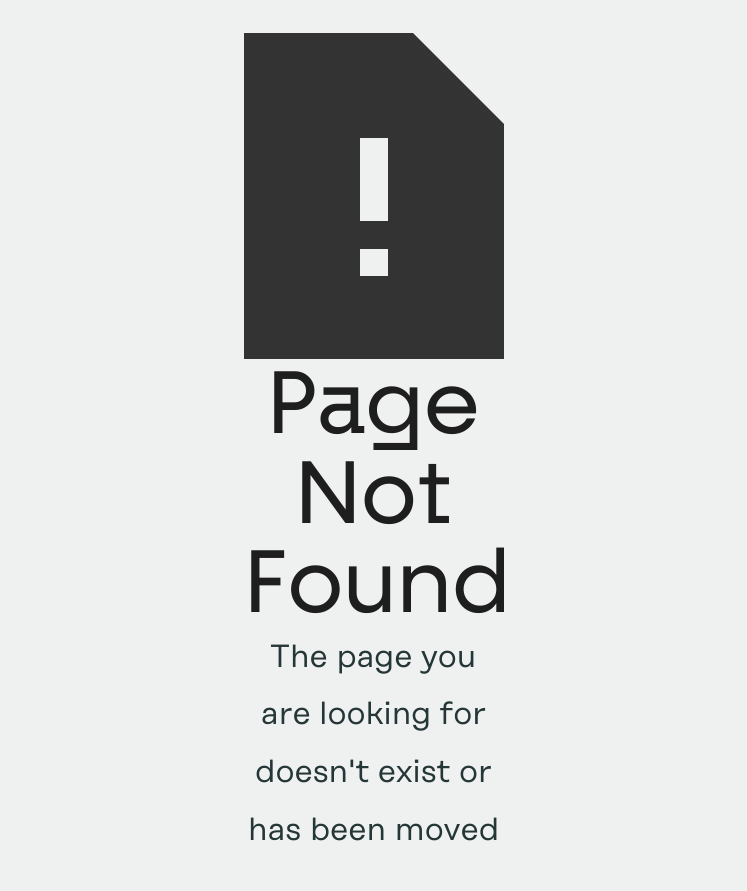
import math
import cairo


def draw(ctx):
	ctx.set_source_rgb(0.937, 0.941, 0.941)
	ctx.paint()
	ctx.set_source_rgb(0.2, 0.2, 0.2)
	ctx.set_fill_rule(cairo.FILL_RULE_EVEN_ODD)
	ctx.new_path()
	ctx.move_to(244, 33)
	ctx.line_to(413, 33)
	ctx.line_to(504, 124)
	ctx.line_to(504, 359)
	ctx.line_to(244, 359)
	ctx.close_path()
	ctx.move_to(360, 138)
	ctx.line_to(388, 138)
	ctx.line_to(388, 221)
	ctx.line_to(360, 221)
	ctx.close_path()
	ctx.move_to(360, 249)
	ctx.line_to(388, 249)
	ctx.line_to(388, 276)
	ctx.line_to(360, 276)
	ctx.close_path()
	ctx.fill()
	ctx.select_font_face('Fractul')
	ctx.set_font_size(89.5)
	ctx.set_source_rgb(0.118, 0.118, 0.118)
	for x, y, s in [
		(267, 433, 'Page'),
		(295, 523, 'Not'),
		(244, 612, 'Found'),
	]:
		ctx.move_to(x, y)
		ctx.show_text(s)
	ctx.select_font_face('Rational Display')
	ctx.set_font_size(32)
	ctx.set_source_rgb(0.145, 0.212, 0.216)
	for x, y, s in [
		(270, 667, 'The page you'),
		(261, 724, 'are looking for'),
		(255, 782, 'doesn\'t exist or'),
		(248, 840, 'has been moved'),
	]:
		ctx.move_to(x, y)
		ctx.show_text(s)


surface = cairo.ImageSurface(cairo.FORMAT_RGB24, 747, 891)
ctx = cairo.Context(surface)
options = cairo.FontOptions()
options.set_hint_metrics(cairo.HINT_METRICS_OFF)
options.set_hint_style(cairo.HINT_STYLE_NONE)
ctx.set_font_options(options)
ctx.set_miter_limit(4)
draw(ctx)
surface.write_to_png('image.png')
